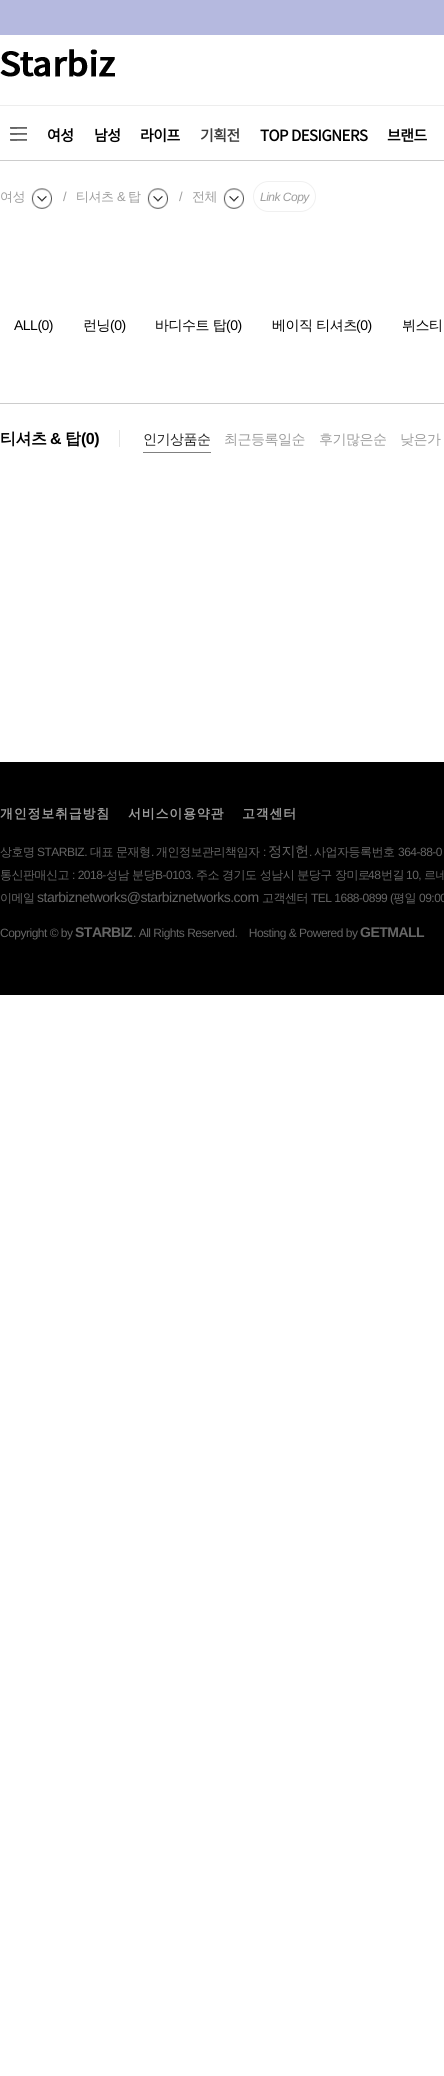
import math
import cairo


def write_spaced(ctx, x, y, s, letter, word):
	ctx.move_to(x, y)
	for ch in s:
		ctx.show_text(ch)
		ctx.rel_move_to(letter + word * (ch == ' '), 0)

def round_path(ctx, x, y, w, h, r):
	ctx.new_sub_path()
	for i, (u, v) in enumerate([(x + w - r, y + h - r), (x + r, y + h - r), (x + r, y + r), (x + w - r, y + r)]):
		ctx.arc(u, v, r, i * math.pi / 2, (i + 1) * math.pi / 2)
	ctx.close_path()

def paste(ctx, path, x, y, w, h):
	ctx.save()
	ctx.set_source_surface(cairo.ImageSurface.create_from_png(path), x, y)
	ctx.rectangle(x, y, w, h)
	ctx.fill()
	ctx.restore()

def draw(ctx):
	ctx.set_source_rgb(1, 1, 1)
	ctx.paint()
	ctx.set_source_rgb(0.71, 0.725, 0.875)
	ctx.rectangle(0, 0, 444, 35)
	ctx.fill()
	ctx.set_source_rgb(0.8, 0.8, 0.8)
	ctx.rectangle(0, 160, 444, 1)
	ctx.fill()
	paste(ctx, 'media/1.png', 0, 49, 115, 28)
	ctx.set_source_rgb(0.929, 0.929, 0.929)
	ctx.rectangle(0, 105, 444, 1)
	ctx.fill()
	paste(ctx, 'media/2.png', 10, 127, 17, 14)
	ctx.select_font_face('Noto Sans KR', cairo.FONT_SLANT_NORMAL, cairo.FONT_WEIGHT_BOLD)
	ctx.set_font_size(15)
	ctx.set_source_rgb(0, 0, 0)
	for x, y, s in [
		(47, 141, '여성'),
		(94, 141, '남성'),
		(140, 141, '라이프'),
	]:
		write_spaced(ctx, x, y, s, -0.5, 0)
	ctx.set_source_rgb(0.239, 0.239, 0.239)
	write_spaced(ctx, 200, 141, '기획전', -0.5, 0)
	ctx.set_source_rgb(0, 0, 0)
	write_spaced(ctx, 260, 141, 'TOP DESIGNERS', -0.5, 0)
	write_spaced(ctx, 387, 141, '브랜드', -0.5, 0)
	ctx.select_font_face('WenQuanYi Zen Hei Medium')
	ctx.set_font_size(13)
	ctx.set_source_rgb(0.616, 0.616, 0.616)
	write_spaced(ctx, 0, 201, '여성', -0.5, 0)
	paste(ctx, 'media/3.png', 31, 188, 21, 21)
	ctx.select_font_face('Liberation Sans')
	write_spaced(ctx, 63, 201, '/', -0.5, 0)
	ctx.select_font_face('WenQuanYi Zen Hei Medium')
	write_spaced(ctx, 76, 201, '티셔츠', -0.5, 0)
	ctx.select_font_face('Liberation Sans')
	write_spaced(ctx, 117, 201, '&', -0.5, 0)
	ctx.select_font_face('WenQuanYi Zen Hei Medium')
	write_spaced(ctx, 128, 201, '탑', -0.5, 0)
	paste(ctx, 'media/3.png', 147, 188, 21, 21)
	ctx.select_font_face('Liberation Sans')
	write_spaced(ctx, 179, 201, '/', -0.5, 0)
	ctx.select_font_face('WenQuanYi Zen Hei Medium')
	write_spaced(ctx, 192, 201, '전체', -0.5, 0)
	paste(ctx, 'media/3.png', 223, 188, 21, 21)
	round_path(ctx, 253.5, 181.5, 62, 30, 15)
	ctx.set_source_rgb(0.941, 0.941, 0.941)
	ctx.set_line_width(1)
	ctx.stroke()
	ctx.select_font_face('Liberation Sans', cairo.FONT_SLANT_ITALIC)
	ctx.set_font_size(12)
	ctx.set_source_rgb(0.616, 0.616, 0.616)
	write_spaced(ctx, 260, 201, 'Link Copy', -0.5, 0)
	ctx.select_font_face('Liberation Sans')
	ctx.set_font_size(14)
	ctx.set_source_rgb(0, 0, 0)
	write_spaced(ctx, 14, 330, 'ALL(0)', -0.5, 0)
	ctx.select_font_face('WenQuanYi Zen Hei Medium')
	write_spaced(ctx, 83, 330, '런닝', -0.5, 0)
	ctx.select_font_face('Liberation Sans')
	write_spaced(ctx, 110, 330, '(0)', -0.5, 0)
	ctx.select_font_face('WenQuanYi Zen Hei Medium')
	write_spaced(ctx, 155, 330, '바디수트 탑', -0.5, 0)
	ctx.select_font_face('Liberation Sans')
	write_spaced(ctx, 226, 330, '(0)', -0.5, 0)
	ctx.select_font_face('WenQuanYi Zen Hei Medium')
	write_spaced(ctx, 272, 330, '베이직 티셔츠', -0.5, 0)
	ctx.select_font_face('Liberation Sans')
	write_spaced(ctx, 356, 330, '(0)', -0.5, 0)
	ctx.select_font_face('WenQuanYi Zen Hei Medium')
	write_spaced(ctx, 402, 330, '뷔스티', -0.5, 0)
	ctx.set_source_rgb(0.8, 0.8, 0.8)
	ctx.rectangle(0, 403, 444, 1)
	ctx.fill()
	ctx.select_font_face('WenQuanYi Zen Hei', cairo.FONT_SLANT_NORMAL, cairo.FONT_WEIGHT_BOLD)
	ctx.set_font_size(16)
	ctx.set_source_rgb(0, 0, 0)
	write_spaced(ctx, 0, 444, '티셔츠', -0.5, 0)
	ctx.select_font_face('Liberation Sans', cairo.FONT_SLANT_NORMAL, cairo.FONT_WEIGHT_BOLD)
	write_spaced(ctx, 50, 444, '&', -0.5, 0)
	ctx.select_font_face('WenQuanYi Zen Hei', cairo.FONT_SLANT_NORMAL, cairo.FONT_WEIGHT_BOLD)
	write_spaced(ctx, 65, 444, '탑', -0.5, 0)
	ctx.select_font_face('Liberation Sans', cairo.FONT_SLANT_NORMAL, cairo.FONT_WEIGHT_BOLD)
	write_spaced(ctx, 81, 444, '(0)', -0.5, 0)
	ctx.set_source_rgb(0.902, 0.902, 0.902)
	ctx.rectangle(119, 430, 1, 17)
	ctx.fill()
	ctx.select_font_face('WenQuanYi Zen Hei Medium')
	ctx.set_font_size(14)
	ctx.set_source_rgb(0.133, 0.133, 0.133)
	write_spaced(ctx, 143, 444, '인기상품순', -0.5, 0)
	ctx.set_source_rgb(0.502, 0.502, 0.502)
	ctx.rectangle(143, 452, 68, 1)
	ctx.fill()
	ctx.set_source_rgb(0.616, 0.616, 0.616)
	for x, y, s in [
		(224, 444, '최근등록일순'),
		(319, 444, '후기많은순'),
		(400, 444, '낮은가'),
	]:
		write_spaced(ctx, x, y, s, -0.5, 0)
	ctx.set_source_rgb(0, 0, 0)
	ctx.rectangle(0, 762, 444, 233)
	ctx.fill()
	ctx.select_font_face('WenQuanYi Zen Hei', cairo.FONT_SLANT_NORMAL, cairo.FONT_WEIGHT_BOLD)
	ctx.set_font_size(13)
	ctx.set_source_rgb(0.616, 0.616, 0.616)
	for x, y, s in [
		(0, 818, '개인정보취급방침'),
		(128, 818, '서비스이용약관'),
		(242, 818, '고객센터'),
	]:
		write_spaced(ctx, x, y, s, 0.75, 0)
	ctx.select_font_face('WenQuanYi Zen Hei Medium')
	ctx.set_font_size(12)
	ctx.set_source_rgb(0.4, 0.4, 0.4)
	write_spaced(ctx, 0, 856, '상호명', -0.5, 0)
	ctx.select_font_face('Liberation Sans')
	write_spaced(ctx, 37, 856, 'STARBIZ.', -0.5, 0)
	ctx.select_font_face('WenQuanYi Zen Hei Medium')
	write_spaced(ctx, 90, 856, '대표 문재형', -0.5, 0)
	ctx.select_font_face('Liberation Sans')
	write_spaced(ctx, 151, 856, '.', -0.5, 0)
	ctx.select_font_face('WenQuanYi Zen Hei Medium')
	write_spaced(ctx, 156, 856, '개인정보관리책임자', -0.5, 0)
	ctx.select_font_face('Liberation Sans')
	write_spaced(ctx, 263, 856, ':', -0.5, 0)
	ctx.select_font_face('WenQuanYi Zen Hei Medium')
	ctx.set_font_size(14)
	write_spaced(ctx, 268, 856, '정지헌', -0.5, 0)
	ctx.select_font_face('Liberation Sans')
	ctx.set_font_size(12)
	write_spaced(ctx, 309, 856, '.', -0.5, 0)
	ctx.select_font_face('WenQuanYi Zen Hei Medium')
	write_spaced(ctx, 314, 856, '사업자등록번호', -0.5, 0)
	ctx.select_font_face('Liberation Sans')
	write_spaced(ctx, 398, 856, '364-88-0', -0.5, 0)
	ctx.select_font_face('WenQuanYi Zen Hei Medium')
	write_spaced(ctx, 0, 879, '통신판매신고', -0.5, 0)
	ctx.select_font_face('Liberation Sans')
	write_spaced(ctx, 72, 879, ': 2018-', -0.5, 0)
	ctx.select_font_face('WenQuanYi Zen Hei Medium')
	write_spaced(ctx, 106, 879, '성남 분당', -0.5, 0)
	ctx.select_font_face('Liberation Sans')
	write_spaced(ctx, 155, 879, 'B-0103.', -0.5, 0)
	ctx.select_font_face('WenQuanYi Zen Hei Medium')
	write_spaced(ctx, 196, 879, '주소 경기도 성남시 분당구 장미로', -0.5, 0)
	ctx.select_font_face('Liberation Sans')
	write_spaced(ctx, 368, 879, '48', -0.5, 0)
	ctx.select_font_face('WenQuanYi Zen Hei Medium')
	write_spaced(ctx, 381, 879, '번길', -0.5, 0)
	ctx.select_font_face('Liberation Sans')
	write_spaced(ctx, 406, 879, '10,', -0.5, 0)
	ctx.select_font_face('WenQuanYi Zen Hei Medium')
	write_spaced(ctx, 424, 879, '르네', -0.5, 0)
	write_spaced(ctx, 0, 902, '이메일', -0.5, 0)
	ctx.select_font_face('Liberation Sans')
	ctx.set_font_size(14)
	write_spaced(ctx, 37, 902, 'starbiznetworks@starbiznetworks.com', -0.5, 0)
	ctx.select_font_face('WenQuanYi Zen Hei Medium')
	ctx.set_font_size(12)
	write_spaced(ctx, 262, 902, '고객센터', -0.5, 0)
	ctx.select_font_face('Liberation Sans')
	write_spaced(ctx, 311, 902, 'TEL 1688-0899 (', -0.5, 0)
	ctx.select_font_face('WenQuanYi Zen Hei Medium')
	write_spaced(ctx, 393, 902, '평일', -0.5, 0)
	ctx.select_font_face('Liberation Sans')
	write_spaced(ctx, 419, 902, '09:00', -0.5, 0)
	write_spaced(ctx, 0, 937, 'Copyright © by', -0.5, 0)
	ctx.select_font_face('Liberation Sans', cairo.FONT_SLANT_NORMAL, cairo.FONT_WEIGHT_BOLD)
	ctx.set_font_size(14)
	write_spaced(ctx, 75, 937, 'STARBIZ', -0.5, 0)
	ctx.select_font_face('Liberation Sans')
	ctx.set_font_size(12)
	write_spaced(ctx, 133, 937, '. All Rights Reserved.    Hosting & Powered by', -0.5, 0)
	ctx.select_font_face('Liberation Sans', cairo.FONT_SLANT_NORMAL, cairo.FONT_WEIGHT_BOLD)
	ctx.set_font_size(14)
	write_spaced(ctx, 360, 937, 'GETMALL', -0.5, 0)


surface = cairo.ImageSurface(cairo.FORMAT_RGB24, 444, 2076)
ctx = cairo.Context(surface)
options = cairo.FontOptions()
options.set_hint_metrics(cairo.HINT_METRICS_OFF)
options.set_hint_style(cairo.HINT_STYLE_NONE)
ctx.set_font_options(options)
ctx.set_miter_limit(4)
draw(ctx)
surface.write_to_png('image.png')
